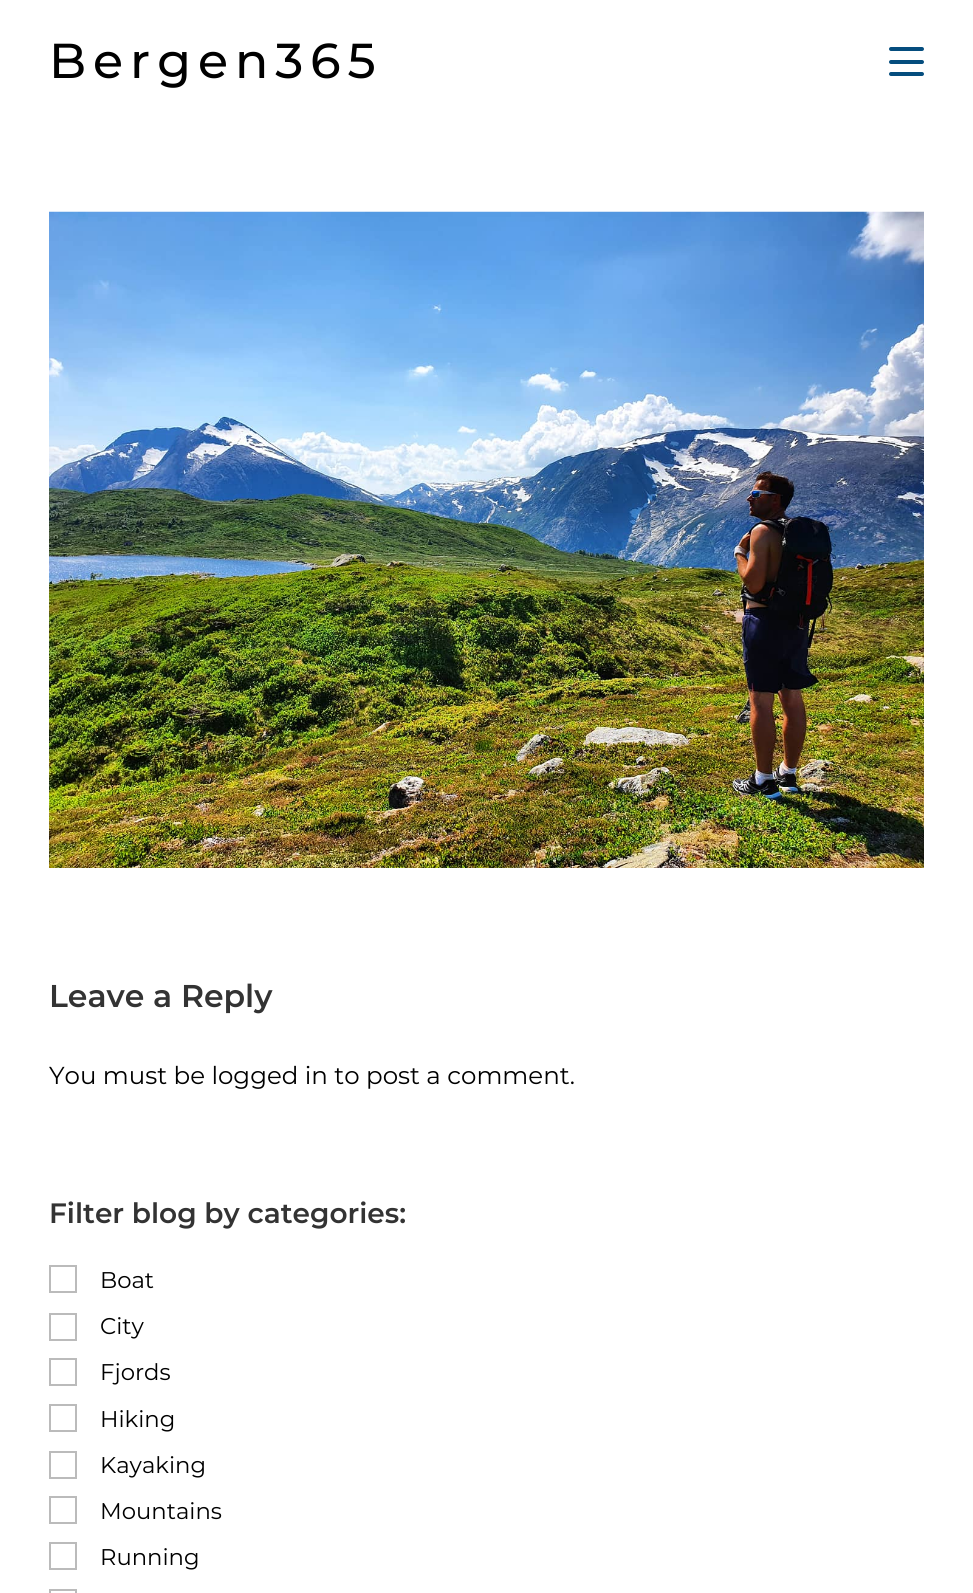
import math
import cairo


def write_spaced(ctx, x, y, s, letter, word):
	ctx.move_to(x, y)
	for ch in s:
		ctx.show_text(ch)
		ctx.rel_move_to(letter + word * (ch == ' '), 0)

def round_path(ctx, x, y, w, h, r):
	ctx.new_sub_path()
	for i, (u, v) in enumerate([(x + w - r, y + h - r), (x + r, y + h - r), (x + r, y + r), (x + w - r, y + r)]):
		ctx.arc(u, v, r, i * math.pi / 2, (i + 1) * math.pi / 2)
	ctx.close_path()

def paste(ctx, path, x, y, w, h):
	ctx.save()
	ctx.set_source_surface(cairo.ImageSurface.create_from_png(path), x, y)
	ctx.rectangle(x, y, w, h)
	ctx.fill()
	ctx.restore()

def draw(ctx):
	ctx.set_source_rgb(1, 1, 1)
	ctx.paint()
	ctx.select_font_face('Montserrat Medium')
	ctx.set_font_size(49)
	ctx.set_source_rgb(0, 0, 0)
	write_spaced(ctx, 49, 78, 'Bergen365', 7, 0)
	ctx.set_source_rgb(0.02, 0.302, 0.494)
	round_path(ctx, 889, 60, 35, 4, 2)
	ctx.fill()
	round_path(ctx, 889, 47, 35, 4, 2)
	ctx.fill()
	round_path(ctx, 889, 72, 35, 4, 2)
	ctx.fill()
	paste(ctx, 'media/1.png', 49, 211, 875, 657)
	ctx.select_font_face('Montserrat SemiBold')
	ctx.set_font_size(31.5)
	ctx.set_source_rgb(0.2, 0.2, 0.2)
	ctx.move_to(49, 1007)
	ctx.show_text('Leave a Reply')
	ctx.select_font_face('Montserrat')
	ctx.set_font_size(24.5)
	ctx.set_source_rgb(0, 0, 0)
	ctx.move_to(49, 1084)
	ctx.show_text('You must be logged in to post a comment.')
	ctx.select_font_face('Montserrat SemiBold')
	ctx.set_font_size(28)
	ctx.set_source_rgb(0.2, 0.2, 0.2)
	ctx.move_to(49, 1223)
	ctx.show_text('Filter blog by categories:')
	ctx.rectangle(50, 1266, 26, 26)
	ctx.set_source_rgb(0.733, 0.733, 0.733)
	ctx.stroke()
	ctx.select_font_face('Montserrat')
	ctx.set_font_size(22.75)
	ctx.set_source_rgb(0, 0, 0)
	ctx.move_to(100, 1288)
	ctx.show_text('Boat')
	ctx.rectangle(50, 1314, 26, 26)
	ctx.set_source_rgb(0.733, 0.733, 0.733)
	ctx.stroke()
	ctx.set_source_rgb(0, 0, 0)
	ctx.move_to(100, 1334)
	ctx.show_text('City')
	ctx.rectangle(50, 1359, 26, 26)
	ctx.set_source_rgb(0.733, 0.733, 0.733)
	ctx.stroke()
	ctx.set_source_rgb(0, 0, 0)
	ctx.move_to(100, 1380)
	ctx.show_text('Fjords')
	ctx.rectangle(50, 1405, 26, 26)
	ctx.set_source_rgb(0.733, 0.733, 0.733)
	ctx.stroke()
	ctx.set_source_rgb(0, 0, 0)
	ctx.move_to(100, 1427)
	ctx.show_text('Hiking')
	ctx.rectangle(50, 1452, 26, 26)
	ctx.set_source_rgb(0.733, 0.733, 0.733)
	ctx.stroke()
	ctx.set_source_rgb(0, 0, 0)
	ctx.move_to(100, 1473)
	ctx.show_text('Kayaking')
	ctx.rectangle(50, 1497, 26, 26)
	ctx.set_source_rgb(0.733, 0.733, 0.733)
	ctx.stroke()
	ctx.set_source_rgb(0, 0, 0)
	ctx.move_to(100, 1519)
	ctx.show_text('Mountains')
	ctx.rectangle(50, 1543, 26, 26)
	ctx.set_source_rgb(0.733, 0.733, 0.733)
	ctx.stroke()
	ctx.set_source_rgb(0, 0, 0)
	ctx.move_to(100, 1565)
	ctx.show_text('Running')
	ctx.rectangle(50, 1590, 26, 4)
	ctx.set_source_rgb(0.733, 0.733, 0.733)
	ctx.stroke()


surface = cairo.ImageSurface(cairo.FORMAT_RGB24, 973, 1593)
ctx = cairo.Context(surface)
options = cairo.FontOptions()
options.set_hint_metrics(cairo.HINT_METRICS_OFF)
options.set_hint_style(cairo.HINT_STYLE_NONE)
ctx.set_font_options(options)
ctx.set_miter_limit(4)
draw(ctx)
surface.write_to_png('image.png')
